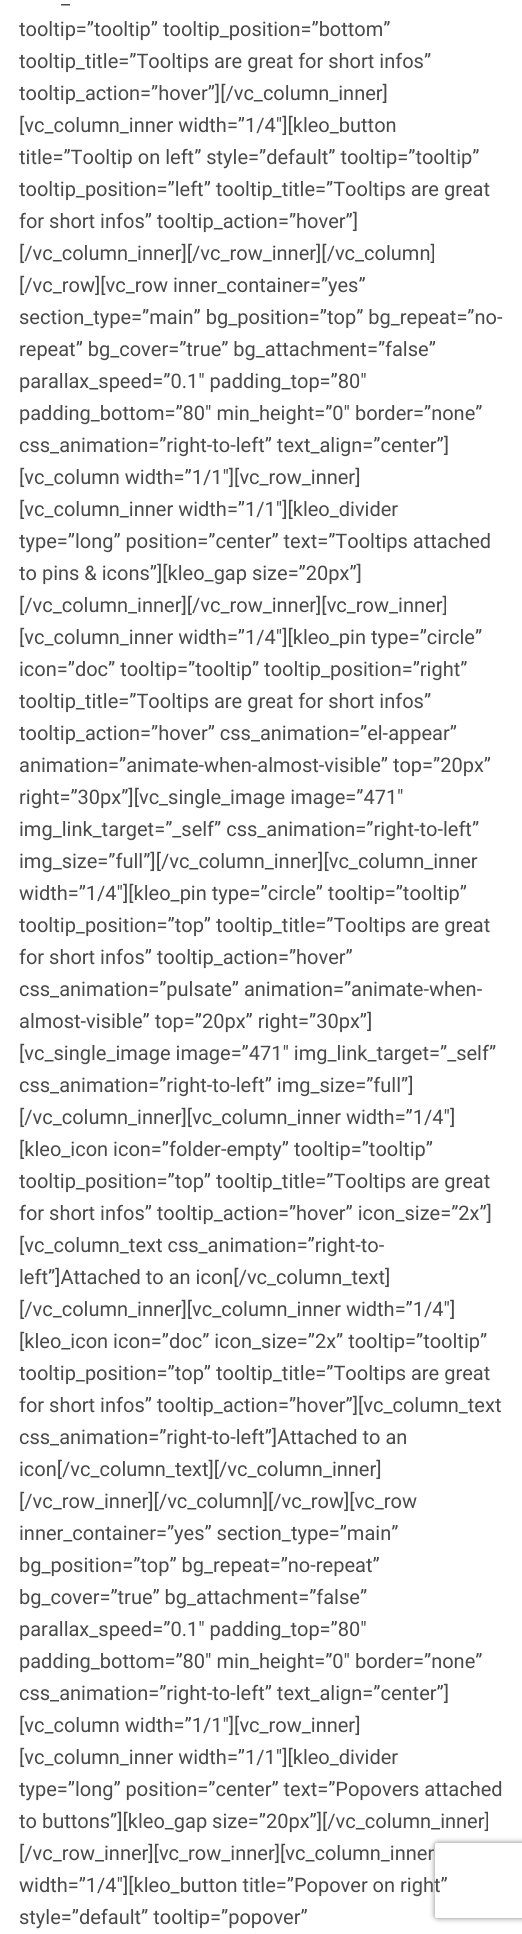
import math
import cairo


def round_path(ctx, x, y, w, h, r):
	ctx.new_sub_path()
	for i, (u, v) in enumerate([(x + w - r, y + h - r), (x + r, y + h - r), (x + r, y + r), (x + w - r, y + r)]):
		ctx.arc(u, v, r, i * math.pi / 2, (i + 1) * math.pi / 2)
	ctx.close_path()

def blur_box(ctx, x, y, w, h, r, blur, alpha):
	ctx.push_group_with_content(cairo.CONTENT_ALPHA)
	ctx.set_operator(cairo.OPERATOR_SOURCE)
	for i in range(15, -16, -2):
		e = blur * i / 6
		if min(w, h) + 2 * e > 0:
			ctx.set_source_rgba(0, 0, 0, alpha * math.erfc((i - 1) / 8.5) / 2)
			round_path(ctx, x - e, y - e, w + 2 * e, h + 2 * e, max(0, min(r + e + blur * .6, min(w, h) / 2 + e)))
			ctx.fill()
	ctx.mask(ctx.pop_group())

def draw(ctx):
	ctx.set_source_rgb(1, 1, 1)
	ctx.paint()
	ctx.select_font_face('Roboto')
	ctx.set_font_size(20)
	ctx.set_source_rgb(0.29, 0.29, 0.29)
	for x, y, s in [
		(61, 4, '_'),
		(19, 36, 'tooltip=”tooltip” tooltip_position=”bottom”'),
		(19, 68, 'tooltip_title=”Tooltips are great for short infos”'),
		(19, 100, 'tooltip_action=”hover”][/vc_column_inner]'),
		(19, 132, '[vc_column_inner width=”1/4″][kleo_button'),
		(19, 164, 'title=”Tooltip on left” style=”default” tooltip=”tooltip”'),
		(19, 196, 'tooltip_position=”left” tooltip_title=”Tooltips are great'),
		(19, 228, 'for short infos” tooltip_action=”hover”]'),
		(19, 260, '[/vc_column_inner][/vc_row_inner][/vc_column]'),
		(19, 292, '[/vc_row][vc_row inner_container=”yes”'),
		(19, 324, 'section_type=”main” bg_position=”top” bg_repeat=”no-'),
		(19, 356, 'repeat” bg_cover=”true” bg_attachment=”false”'),
		(19, 388, 'parallax_speed=”0.1″ padding_top=”80″'),
		(19, 420, 'padding_bottom=”80″ min_height=”0″ border=”none”'),
		(19, 452, 'css_animation=”right-to-left” text_align=”center”]'),
		(19, 484, '[vc_column width=”1/1″][vc_row_inner]'),
		(19, 516, '[vc_column_inner width=”1/1″][kleo_divider'),
		(19, 548, 'type=”long” position=”center” text=”Tooltips attached'),
		(19, 580, 'to pins & icons”][kleo_gap size=”20px”]'),
		(19, 612, '[/vc_column_inner][/vc_row_inner][vc_row_inner]'),
		(19, 644, '[vc_column_inner width=”1/4″][kleo_pin type=”circle”'),
		(19, 676, 'icon=”doc” tooltip=”tooltip” tooltip_position=”right”'),
		(19, 708, 'tooltip_title=”Tooltips are great for short infos”'),
		(19, 740, 'tooltip_action=”hover” css_animation=”el-appear”'),
		(19, 772, 'animation=”animate-when-almost-visible” top=”20px”'),
		(19, 804, 'right=”30px”][vc_single_image image=”471″'),
		(19, 836, 'img_link_target=”_self” css_animation=”right-to-left”'),
		(19, 868, 'img_size=”full”][/vc_column_inner][vc_column_inner'),
		(19, 900, 'width=”1/4″][kleo_pin type=”circle” tooltip=”tooltip”'),
		(19, 932, 'tooltip_position=”top” tooltip_title=”Tooltips are great'),
		(19, 964, 'for short infos” tooltip_action=”hover”'),
		(19, 996, 'css_animation=”pulsate” animation=”animate-when-'),
		(19, 1028, 'almost-visible” top=”20px” right=”30px”]'),
		(19, 1060, '[vc_single_image image=”471″ img_link_target=”_self”'),
		(19, 1092, 'css_animation=”right-to-left” img_size=”full”]'),
		(19, 1124, '[/vc_column_inner][vc_column_inner width=”1/4″]'),
		(19, 1156, '[kleo_icon icon=”folder-empty” tooltip=”tooltip”'),
		(19, 1188, 'tooltip_position=”top” tooltip_title=”Tooltips are great'),
		(19, 1220, 'for short infos” tooltip_action=”hover” icon_size=”2x”]'),
		(19, 1252, '[vc_column_text css_animation=”right-to-'),
		(19, 1284, 'left”]Attached to an icon[/vc_column_text]'),
		(19, 1316, '[/vc_column_inner][vc_column_inner width=”1/4″]'),
		(19, 1348, '[kleo_icon icon=”doc” icon_size=”2x” tooltip=”tooltip”'),
		(19, 1380, 'tooltip_position=”top” tooltip_title=”Tooltips are great'),
		(19, 1412, 'for short infos” tooltip_action=”hover”][vc_column_text'),
		(19, 1444, 'css_animation=”right-to-left”]Attached to an'),
		(19, 1476, 'icon[/vc_column_text][/vc_column_inner]'),
		(19, 1508, '[/vc_row_inner][/vc_column][/vc_row][vc_row'),
		(19, 1540, 'inner_container=”yes” section_type=”main”'),
		(19, 1572, 'bg_position=”top” bg_repeat=”no-repeat”'),
		(19, 1604, 'bg_cover=”true” bg_attachment=”false”'),
		(19, 1636, 'parallax_speed=”0.1″ padding_top=”80″'),
		(19, 1668, 'padding_bottom=”80″ min_height=”0″ border=”none”'),
		(19, 1700, 'css_animation=”right-to-left” text_align=”center”]'),
		(19, 1732, '[vc_column width=”1/1″][vc_row_inner]'),
		(19, 1764, '[vc_column_inner width=”1/1″][kleo_divider'),
		(19, 1796, 'type=”long” position=”center” text=”Popovers attached'),
		(19, 1828, 'to buttons”][kleo_gap size=”20px”][/vc_column_inner]'),
		(19, 1860, '[/vc_row_inner][vc_row_inner][vc_column_inner'),
		(19, 1892, 'width=”1/4″][kleo_button title=”Popover on right”'),
		(19, 1924, 'style=”default” tooltip=”popover”'),
	]:
		ctx.move_to(x, y)
		ctx.show_text(s)
	ctx.save()
	ctx.set_fill_rule(cairo.FILL_RULE_EVEN_ODD)
	ctx.new_path()
	ctx.move_to(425, 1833)
	ctx.line_to(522, 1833)
	ctx.line_to(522, 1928)
	ctx.line_to(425, 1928)
	ctx.close_path()
	ctx.move_to(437.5, 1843)
	ctx.line_to(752.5, 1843)
	ctx.curve_to(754, 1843, 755, 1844, 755, 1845.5)
	ctx.line_to(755, 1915.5)
	ctx.curve_to(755, 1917, 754, 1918, 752.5, 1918)
	ctx.line_to(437.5, 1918)
	ctx.curve_to(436, 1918, 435, 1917, 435, 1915.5)
	ctx.line_to(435, 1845.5)
	ctx.curve_to(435, 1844, 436, 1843, 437.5, 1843)
	ctx.close_path()
	ctx.clip()
	ctx.set_source_rgb(0.502, 0.502, 0.502)
	blur_box(ctx, 435, 1843, 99, 75, 2.5, 3, 1)
	ctx.restore()


surface = cairo.ImageSurface(cairo.FORMAT_RGB24, 522, 1934)
ctx = cairo.Context(surface)
options = cairo.FontOptions()
options.set_hint_metrics(cairo.HINT_METRICS_OFF)
options.set_hint_style(cairo.HINT_STYLE_NONE)
ctx.set_font_options(options)
ctx.set_miter_limit(4)
draw(ctx)
surface.write_to_png('image.png')
